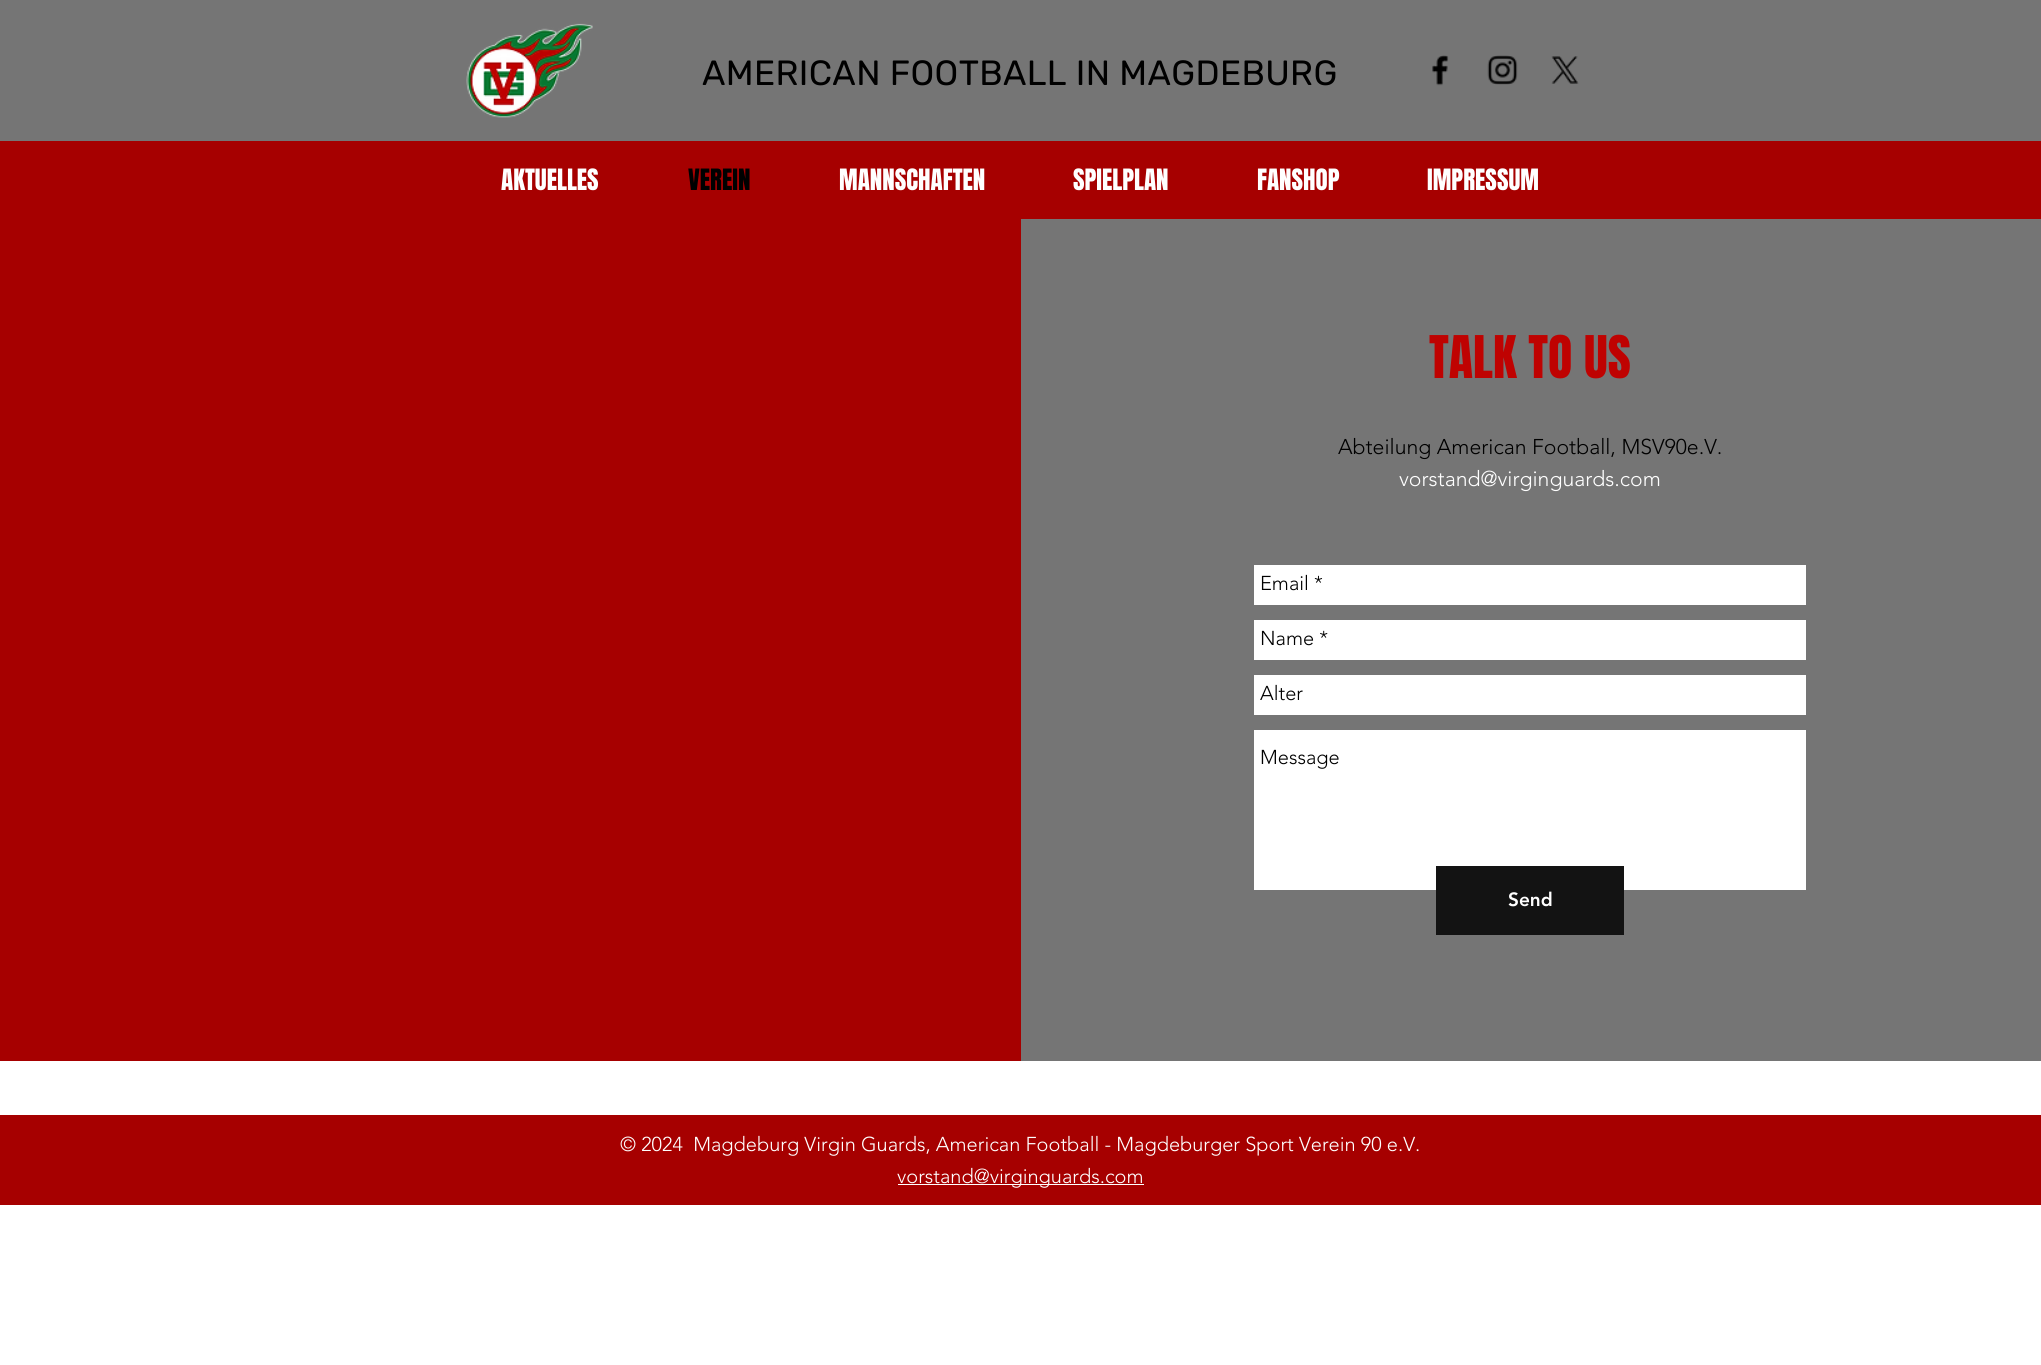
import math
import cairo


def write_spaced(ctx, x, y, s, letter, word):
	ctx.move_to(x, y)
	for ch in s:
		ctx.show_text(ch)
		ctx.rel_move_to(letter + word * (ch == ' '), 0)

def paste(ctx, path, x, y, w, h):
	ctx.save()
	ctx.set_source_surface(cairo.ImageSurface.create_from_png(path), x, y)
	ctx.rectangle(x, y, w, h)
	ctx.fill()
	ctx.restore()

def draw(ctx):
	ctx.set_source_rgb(1, 1, 1)
	ctx.paint()
	ctx.set_source_rgb(0.459, 0.459, 0.459)
	ctx.rectangle(0, 0, 2041, 141)
	ctx.fill()
	paste(ctx, 'media/1.png', 466, 23, 127, 95)
	ctx.select_font_face('Rubik')
	ctx.set_font_size(35)
	ctx.set_source_rgb(0, 0, 0)
	write_spaced(ctx, 702, 85, 'AMERICAN FOOTBALL IN MAGDEBURG', 0.35, 0)
	paste(ctx, 'media/2.png', 1432, 55, 17, 31)
	paste(ctx, 'media/3.png', 1487, 55, 31, 30)
	paste(ctx, 'media/4.png', 1551, 56, 28, 28)
	ctx.set_source_rgb(0.651, 0, 0)
	ctx.rectangle(0, 141, 2041, 78)
	ctx.fill()
	ctx.select_font_face('Anton')
	ctx.set_font_size(25)
	ctx.set_source_rgb(1, 1, 1)
	ctx.move_to(501, 190)
	ctx.show_text('AKTUELLES')
	ctx.set_source_rgb(0, 0, 0)
	ctx.move_to(688, 190)
	ctx.show_text('VEREIN')
	ctx.set_source_rgb(1, 1, 1)
	for x, y, s in [
		(839, 190, 'MANNSCHAFTEN'),
		(1073, 190, 'SPIELPLAN'),
		(1257, 190, 'FANSHOP'),
		(1427, 190, 'IMPRESSUM'),
	]:
		ctx.move_to(x, y)
		ctx.show_text(s)
	ctx.set_source_rgb(0.651, 0, 0)
	ctx.rectangle(0, 219, 1021, 842)
	ctx.fill()
	ctx.set_source_rgb(0.459, 0.459, 0.459)
	ctx.rectangle(1021, 219, 1020, 842)
	ctx.fill()
	ctx.set_font_size(50)
	ctx.set_source_rgb(0.749, 0.008, 0.004)
	ctx.move_to(1429, 378)
	ctx.show_text('TALK TO US')
	ctx.select_font_face('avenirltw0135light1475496 Light')
	ctx.set_font_size(21.25)
	ctx.set_source_rgb(0, 0, 0)
	ctx.move_to(1338, 454)
	ctx.show_text('Abteilung American Football, MSV90e.V.')
	ctx.set_source_rgb(1, 1, 1)
	ctx.move_to(1399, 486)
	ctx.show_text('vorstand@virginguards.com')
	ctx.rectangle(1254, 565, 552, 40)
	ctx.fill()
	ctx.set_font_size(20)
	ctx.set_source_rgb(0, 0, 0)
	ctx.move_to(1260, 590)
	ctx.show_text('Email *')
	ctx.set_source_rgb(1, 1, 1)
	ctx.rectangle(1254, 620, 552, 40)
	ctx.fill()
	ctx.set_source_rgb(0, 0, 0)
	ctx.move_to(1260, 645)
	ctx.show_text('Name *')
	ctx.set_source_rgb(1, 1, 1)
	ctx.rectangle(1254, 675, 552, 40)
	ctx.fill()
	ctx.set_source_rgb(0, 0, 0)
	ctx.move_to(1260, 700)
	ctx.show_text('Alter')
	ctx.set_source_rgb(1, 1, 1)
	ctx.rectangle(1254, 730, 552, 160)
	ctx.fill()
	ctx.set_source_rgb(0, 0, 0)
	ctx.move_to(1260, 764)
	ctx.show_text('Message')
	ctx.set_source_rgb(0.078, 0.078, 0.078)
	ctx.rectangle(1436, 866, 188, 69)
	ctx.fill()
	ctx.select_font_face('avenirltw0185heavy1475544 Black')
	ctx.set_font_size(19)
	ctx.set_source_rgb(1, 1, 1)
	ctx.move_to(1508, 906)
	ctx.show_text('Send')
	ctx.set_source_rgb(0.651, 0, 0)
	ctx.rectangle(0, 1115, 2041, 90)
	ctx.fill()
	ctx.select_font_face('avenirltw0135light1475496 Light')
	ctx.set_font_size(20)
	ctx.set_source_rgb(1, 1, 1)
	ctx.move_to(620, 1151)
	ctx.show_text('© 2024  Magdeburg Virgin Guards, American Football - Magdeburger Sport Verein 90 e.V.')
	ctx.rectangle(898, 1184, 246, 1)
	ctx.fill()
	ctx.move_to(897, 1183)
	ctx.show_text('vorstand@virginguards.com')


surface = cairo.ImageSurface(cairo.FORMAT_RGB24, 2041, 1365)
ctx = cairo.Context(surface)
options = cairo.FontOptions()
options.set_hint_metrics(cairo.HINT_METRICS_OFF)
options.set_hint_style(cairo.HINT_STYLE_NONE)
ctx.set_font_options(options)
ctx.set_miter_limit(4)
draw(ctx)
surface.write_to_png('image.png')
